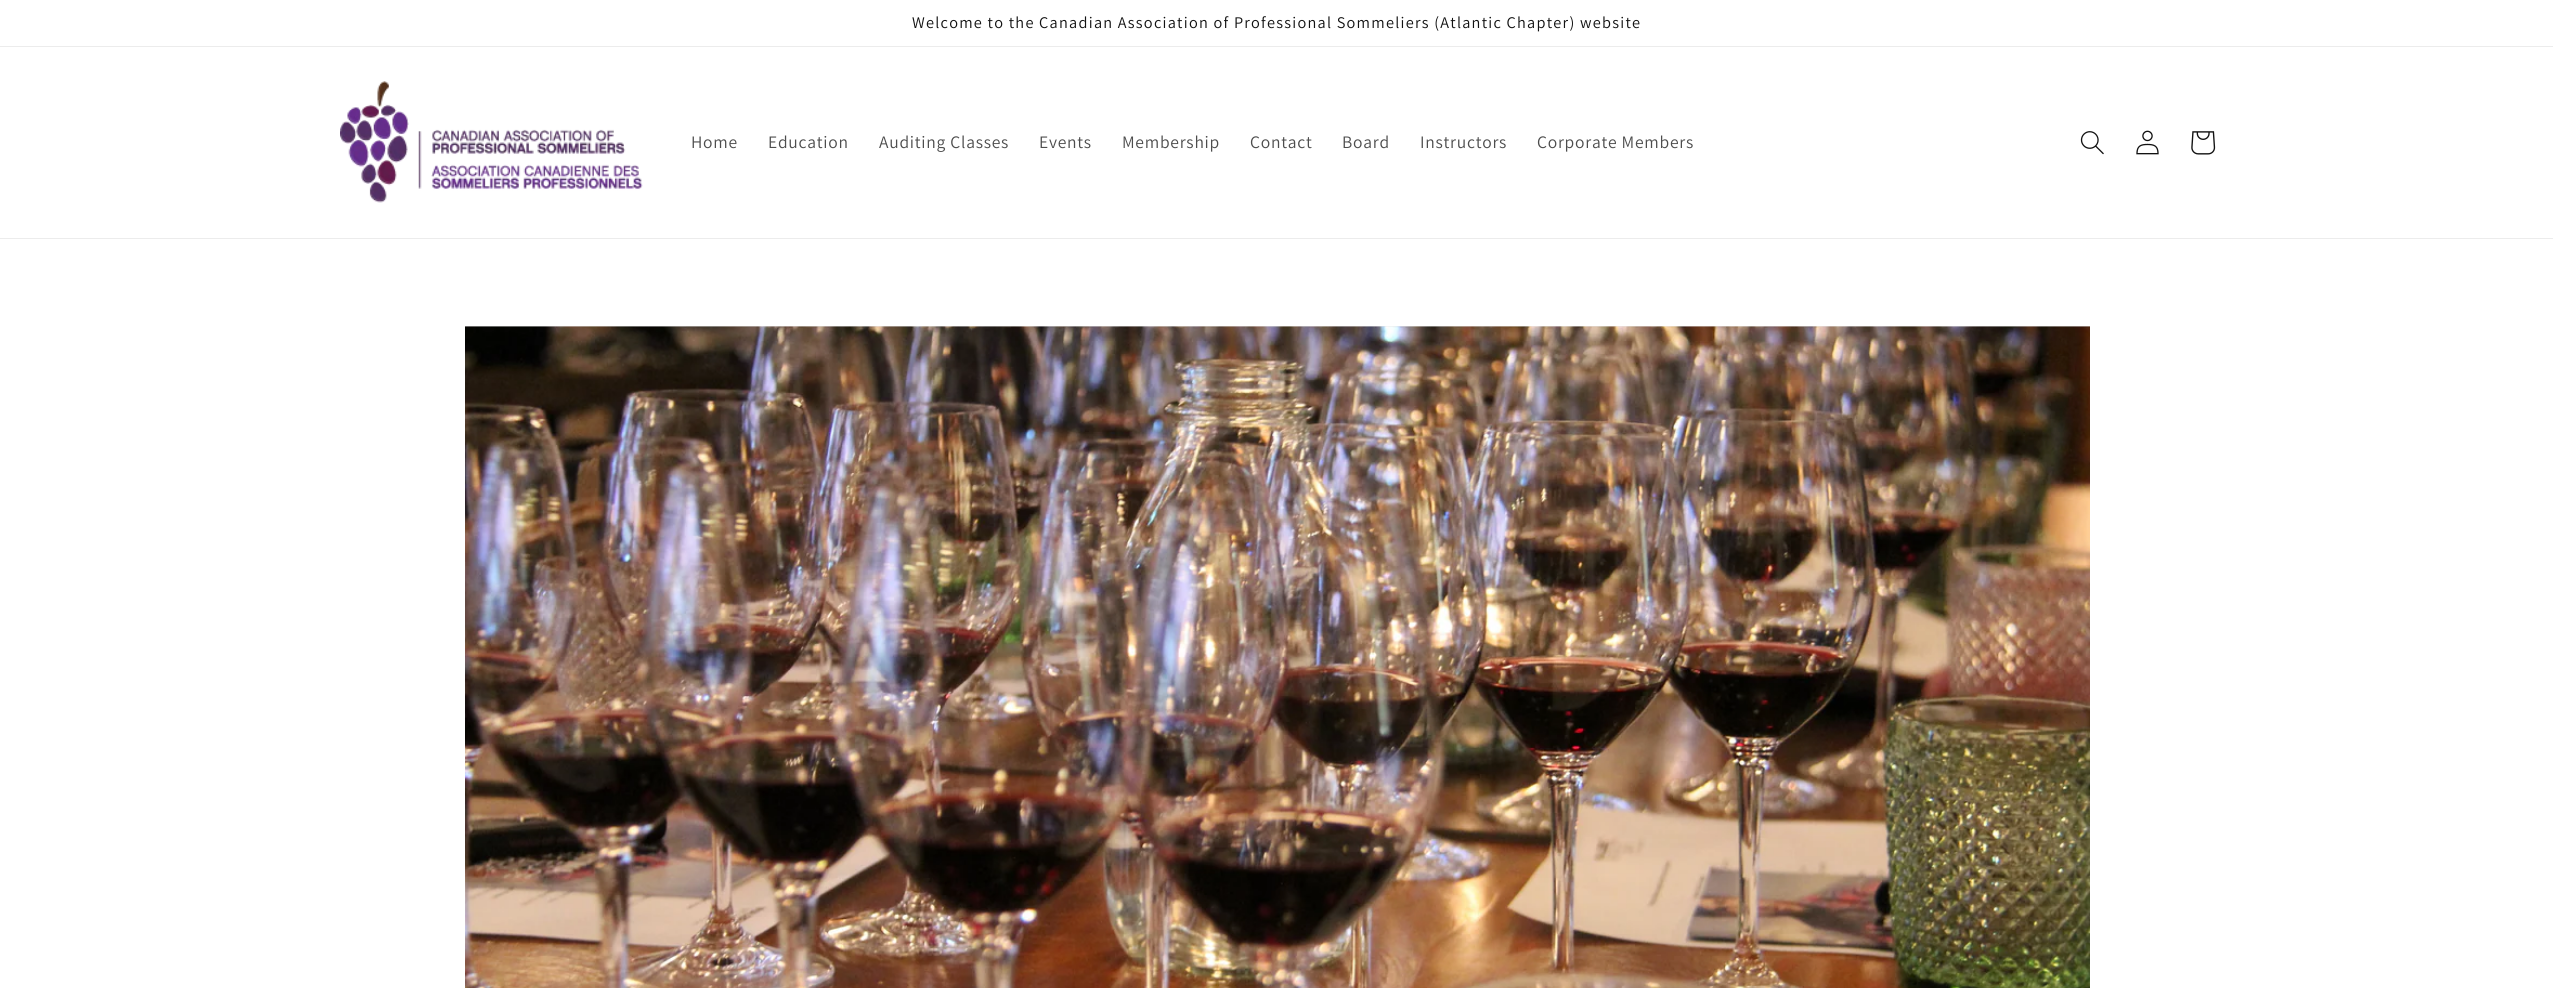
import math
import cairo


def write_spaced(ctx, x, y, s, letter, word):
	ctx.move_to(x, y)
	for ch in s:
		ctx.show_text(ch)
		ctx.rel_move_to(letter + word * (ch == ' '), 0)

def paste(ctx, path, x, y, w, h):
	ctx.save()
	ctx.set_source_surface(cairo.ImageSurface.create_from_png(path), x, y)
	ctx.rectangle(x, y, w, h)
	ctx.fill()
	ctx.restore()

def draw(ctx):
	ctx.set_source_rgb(1, 1, 1)
	ctx.paint()
	ctx.set_source_rgb(0.925, 0.925, 0.925)
	ctx.rectangle(0, 46, 2553, 1)
	ctx.fill()
	ctx.select_font_face('Assistant')
	ctx.set_font_size(16.25)
	ctx.set_source_rgb(0.071, 0.071, 0.071)
	write_spaced(ctx, 912, 28, 'Welcome to the Canadian Association of Professional Sommeliers (Atlantic Chapter) website', 1.25, 0)
	ctx.set_source_rgb(0.925, 0.925, 0.925)
	ctx.rectangle(0, 238, 2553, 1)
	ctx.fill()
	paste(ctx, 'media/1.png', 340, 81, 303, 122)
	ctx.set_font_size(17.5)
	ctx.set_source_rgb(0.302, 0.302, 0.302)
	for x, y, s in [
		(691, 148, 'Home'),
		(768, 148, 'Education'),
		(879, 148, 'Auditing Classes'),
		(1039, 148, 'Events'),
		(1122, 148, 'Membership'),
		(1250, 148, 'Contact'),
		(1342, 148, 'Board'),
		(1420, 148, 'Instructors'),
		(1537, 148, 'Corporate Members'),
	]:
		write_spaced(ctx, x, y, s, 0.75, 0)
	paste(ctx, 'media/2.png', 2080, 131, 24, 24)
	paste(ctx, 'media/3.png', 2136, 130, 23, 25)
	paste(ctx, 'media/4.png', 2191, 131, 25, 24)
	ctx.set_source_rgb(0.91, 0.91, 0.91)
	ctx.rectangle(465, 326, 1625, 1)
	ctx.fill()
	paste(ctx, 'media/5.png', 465, 326, 1625, 662)


surface = cairo.ImageSurface(cairo.FORMAT_RGB24, 2553, 988)
ctx = cairo.Context(surface)
options = cairo.FontOptions()
options.set_hint_metrics(cairo.HINT_METRICS_OFF)
options.set_hint_style(cairo.HINT_STYLE_NONE)
ctx.set_font_options(options)
ctx.set_miter_limit(4)
draw(ctx)
surface.write_to_png('image.png')
